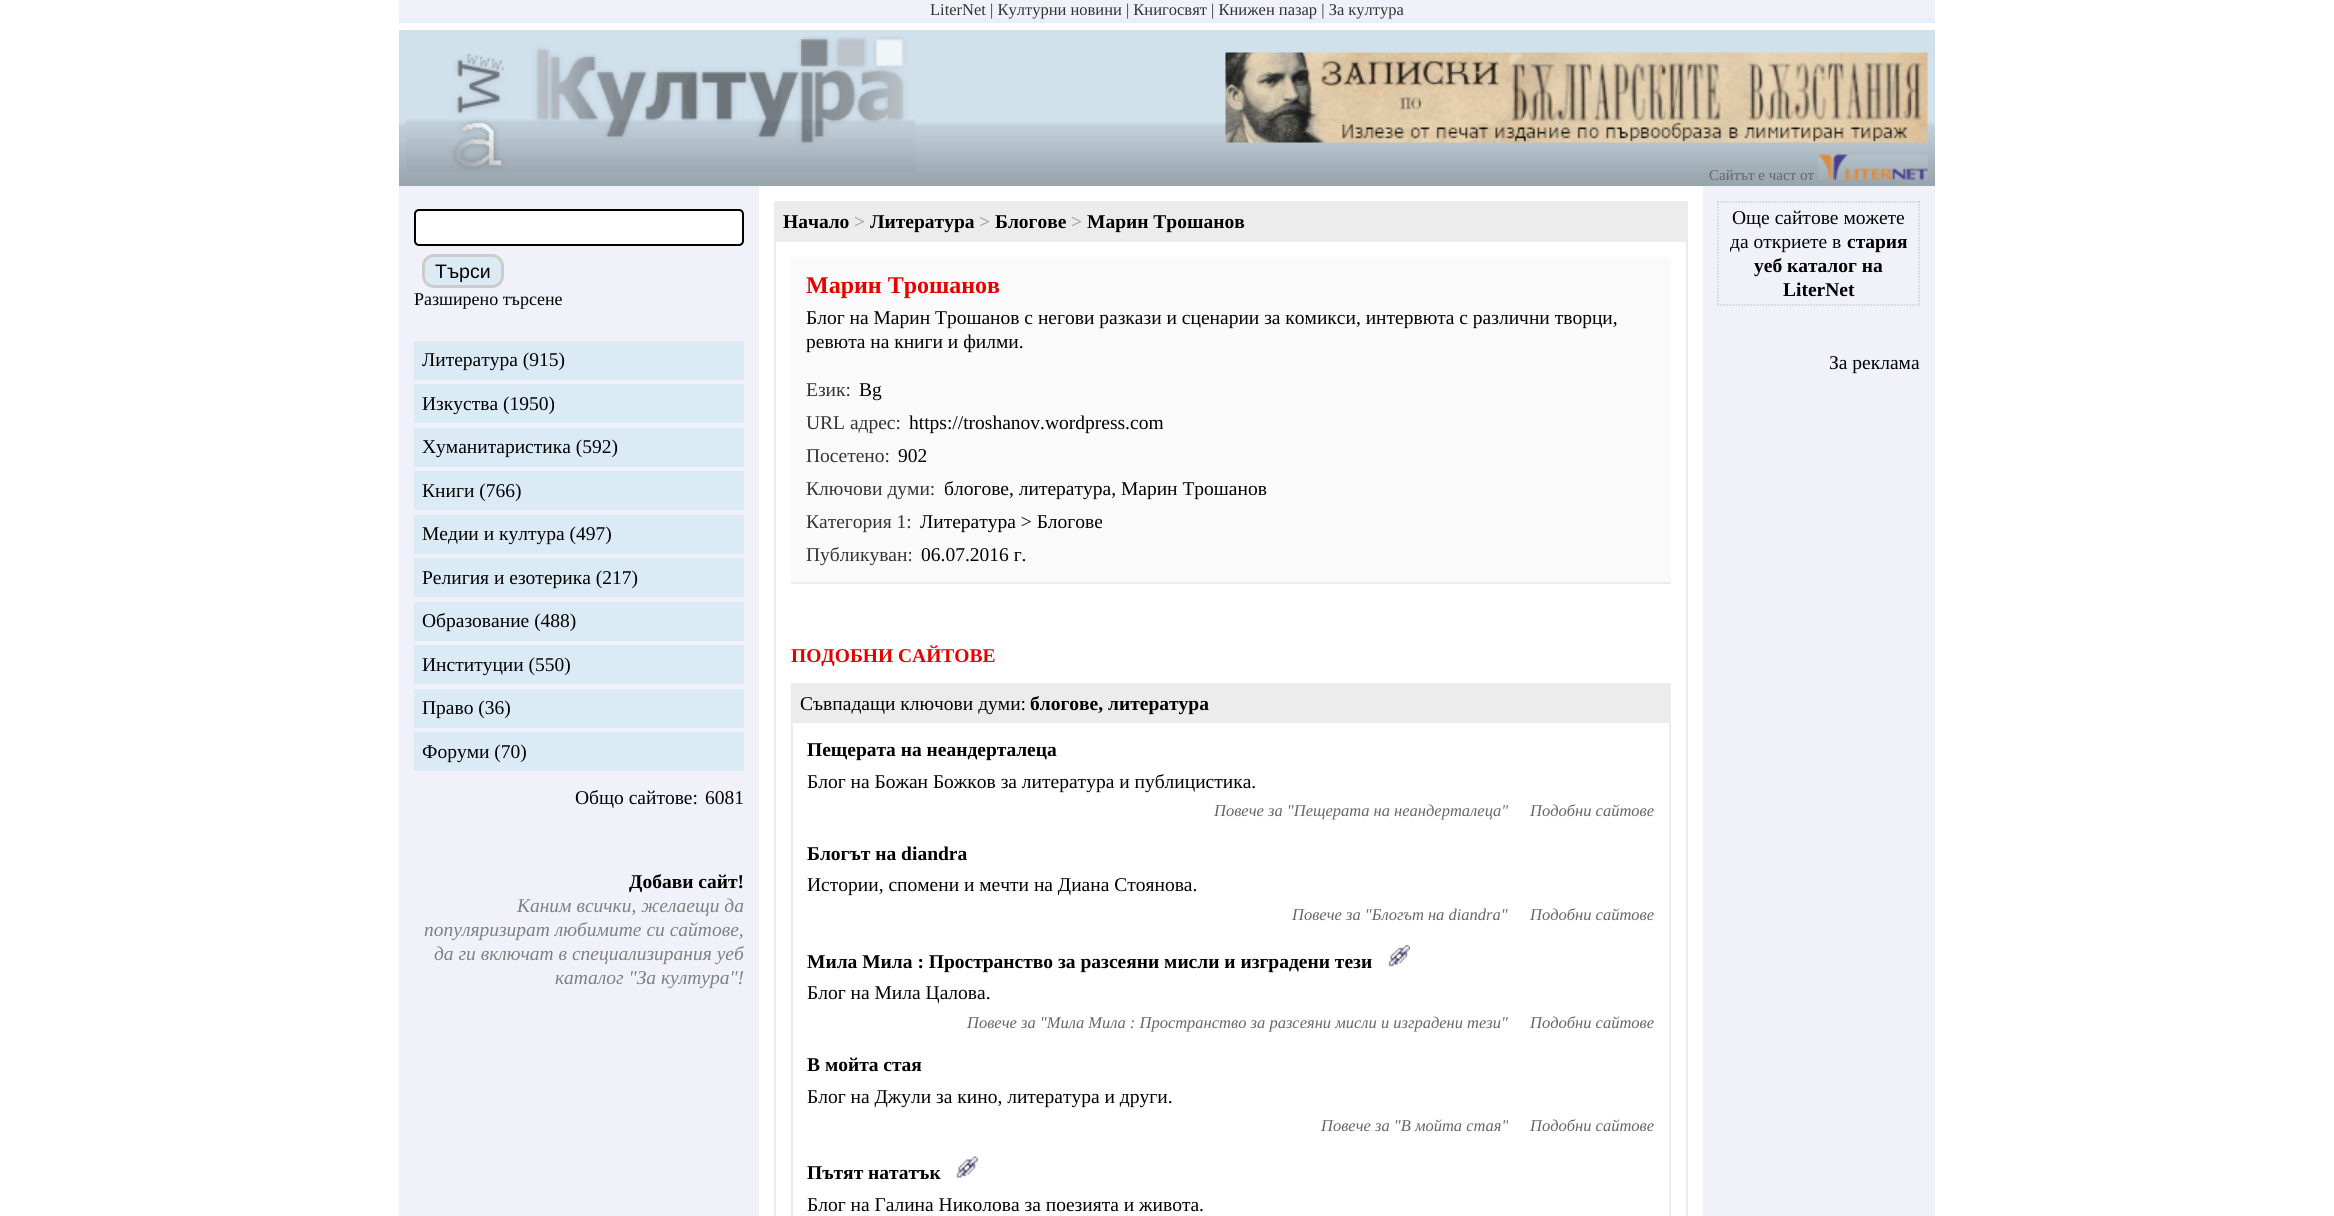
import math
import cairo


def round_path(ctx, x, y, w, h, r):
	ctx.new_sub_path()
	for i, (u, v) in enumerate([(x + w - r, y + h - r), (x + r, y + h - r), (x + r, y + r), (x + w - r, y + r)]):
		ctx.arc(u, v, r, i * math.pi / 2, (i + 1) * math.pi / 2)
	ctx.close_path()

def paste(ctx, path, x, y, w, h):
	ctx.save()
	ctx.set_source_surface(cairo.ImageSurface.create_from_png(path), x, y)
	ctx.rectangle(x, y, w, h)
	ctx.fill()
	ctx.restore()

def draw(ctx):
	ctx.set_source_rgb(1, 1, 1)
	ctx.paint()
	ctx.set_source_rgb(0.945, 0.945, 0.976)
	ctx.rectangle(399, 0, 1536, 18)
	ctx.fill()
	ctx.set_source_rgb(0.898, 0.941, 0.984)
	ctx.rectangle(399, 18, 1536, 5)
	ctx.fill()
	ctx.select_font_face('Liberation Serif')
	ctx.set_font_size(16.5)
	ctx.set_source_rgb(0.2, 0.2, 0.2)
	ctx.move_to(930, 15)
	ctx.show_text('LiterNet | Културни новини | Книгосвят | Книжен пазар | За култура')
	paste(ctx, 'media/1.png', 399, 30, 1536, 156)
	paste(ctx, 'media/2.png', 406, 36, 509, 136)
	paste(ctx, 'media/3.png', 1225, 52, 703, 91)
	ctx.set_font_size(15)
	ctx.set_source_rgb(0.4, 0.4, 0.4)
	ctx.move_to(1709, 180)
	ctx.show_text('Сайтът е част от')
	paste(ctx, 'media/4.png', 1818, 154, 110, 26)
	ctx.set_source_rgb(0.945, 0.945, 0.976)
	ctx.rectangle(399, 186, 360, 1030)
	ctx.fill()
	ctx.set_source_rgb(1, 1, 1)
	round_path(ctx, 415, 210, 328, 35, 4)
	ctx.fill_preserve()
	ctx.set_source_rgb(0, 0, 0)
	ctx.stroke()
	ctx.set_source_rgb(0.859, 0.918, 0.961)
	round_path(ctx, 423.5, 255.5, 79, 31, 10.5)
	ctx.fill_preserve()
	ctx.set_source_rgb(0.8, 0.8, 0.8)
	ctx.set_line_width(3)
	ctx.stroke()
	ctx.select_font_face('Liberation Sans')
	ctx.set_font_size(19.5)
	ctx.set_source_rgb(0, 0, 0)
	ctx.move_to(435, 278)
	ctx.show_text('Търси')
	ctx.select_font_face('Liberation Serif')
	ctx.set_font_size(18)
	ctx.move_to(414, 305)
	ctx.show_text('Разширено търсене')
	ctx.set_source_rgb(0.859, 0.918, 0.961)
	ctx.rectangle(414, 341, 330, 39)
	ctx.fill()
	ctx.set_font_size(19.5)
	ctx.set_source_rgb(0, 0, 0)
	ctx.move_to(422, 366)
	ctx.show_text('Литература (915)')
	ctx.set_source_rgb(0.859, 0.918, 0.961)
	ctx.rectangle(414, 384, 330, 39)
	ctx.fill()
	ctx.set_source_rgb(0, 0, 0)
	ctx.move_to(422, 410)
	ctx.show_text('Изкуства (1950)')
	ctx.set_source_rgb(0.859, 0.918, 0.961)
	ctx.rectangle(414, 428, 330, 39)
	ctx.fill()
	ctx.set_source_rgb(0, 0, 0)
	ctx.move_to(422, 453)
	ctx.show_text('Хуманитаристика (592)')
	ctx.set_source_rgb(0.859, 0.918, 0.961)
	ctx.rectangle(414, 471, 330, 39)
	ctx.fill()
	ctx.set_source_rgb(0, 0, 0)
	ctx.move_to(422, 497)
	ctx.show_text('Книги (766)')
	ctx.set_source_rgb(0.859, 0.918, 0.961)
	ctx.rectangle(414, 515, 330, 39)
	ctx.fill()
	ctx.set_source_rgb(0, 0, 0)
	ctx.move_to(422, 540)
	ctx.show_text('Медии и култура (497)')
	ctx.set_source_rgb(0.859, 0.918, 0.961)
	ctx.rectangle(414, 558, 330, 39)
	ctx.fill()
	ctx.set_source_rgb(0, 0, 0)
	ctx.move_to(422, 584)
	ctx.show_text('Религия и езотерика (217)')
	ctx.set_source_rgb(0.859, 0.918, 0.961)
	ctx.rectangle(414, 602, 330, 39)
	ctx.fill()
	ctx.set_source_rgb(0, 0, 0)
	ctx.move_to(422, 627)
	ctx.show_text('Образование (488)')
	ctx.set_source_rgb(0.859, 0.918, 0.961)
	ctx.rectangle(414, 645, 330, 39)
	ctx.fill()
	ctx.set_source_rgb(0, 0, 0)
	ctx.move_to(422, 671)
	ctx.show_text('Институции (550)')
	ctx.set_source_rgb(0.859, 0.918, 0.961)
	ctx.rectangle(414, 689, 330, 39)
	ctx.fill()
	ctx.set_source_rgb(0, 0, 0)
	ctx.move_to(422, 714)
	ctx.show_text('Право (36)')
	ctx.set_source_rgb(0.859, 0.918, 0.961)
	ctx.rectangle(414, 732, 330, 39)
	ctx.fill()
	ctx.set_source_rgb(0, 0, 0)
	for x, y, s in [
		(422, 758, 'Форуми (70)'),
		(575, 804, 'Общо сайтове:'),
		(705, 804, '6081'),
	]:
		ctx.move_to(x, y)
		ctx.show_text(s)
	ctx.select_font_face('Liberation Serif', cairo.FONT_SLANT_NORMAL, cairo.FONT_WEIGHT_BOLD)
	ctx.move_to(629, 888)
	ctx.show_text('Добави сайт!')
	ctx.select_font_face('Liberation Serif', cairo.FONT_SLANT_ITALIC)
	ctx.set_source_rgb(0.502, 0.502, 0.502)
	for x, y, s in [
		(517, 912, 'Каним всички, желаещи да'),
		(424, 936, 'популяризират любимите си сайтове,'),
		(434, 960, 'да ги включат в специализирания уеб'),
		(555, 984, 'каталог "За култура"!'),
	]:
		ctx.move_to(x, y)
		ctx.show_text(s)
	ctx.rectangle(775, 202, 912, 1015)
	ctx.set_source_rgb(0.922, 0.922, 0.922)
	ctx.set_line_width(2)
	ctx.stroke()
	ctx.rectangle(776, 203, 910, 39)
	ctx.fill()
	ctx.select_font_face('Liberation Serif', cairo.FONT_SLANT_NORMAL, cairo.FONT_WEIGHT_BOLD)
	ctx.set_source_rgb(0, 0, 0)
	ctx.move_to(783, 228)
	ctx.show_text('Начало')
	ctx.set_source_rgb(0.659, 0.659, 0.659)
	ctx.move_to(854, 228)
	ctx.show_text('>')
	ctx.set_source_rgb(0, 0, 0)
	ctx.move_to(870, 228)
	ctx.show_text('Литература')
	ctx.set_source_rgb(0.659, 0.659, 0.659)
	ctx.move_to(979, 228)
	ctx.show_text('>')
	ctx.set_source_rgb(0, 0, 0)
	ctx.move_to(995, 228)
	ctx.show_text('Блогове')
	ctx.set_source_rgb(0.659, 0.659, 0.659)
	ctx.move_to(1071, 228)
	ctx.show_text('>')
	ctx.set_source_rgb(0, 0, 0)
	ctx.move_to(1087, 228)
	ctx.show_text('Марин Трошанов')
	ctx.set_source_rgb(0.98, 0.98, 0.98)
	ctx.rectangle(791, 257, 880, 325)
	ctx.fill()
	ctx.set_source_rgb(0.922, 0.922, 0.922)
	ctx.rectangle(791, 582, 880, 2)
	ctx.fill()
	ctx.set_font_size(24)
	ctx.set_source_rgb(0.902, 0, 0)
	ctx.move_to(806, 293)
	ctx.show_text('Марин Трошанов')
	ctx.select_font_face('Liberation Serif')
	ctx.set_font_size(19.5)
	ctx.set_source_rgb(0, 0, 0)
	ctx.move_to(806, 324)
	ctx.show_text('Блог на Марин Трошанов с негови разкази и сценарии за комикси, интервюта с различни творци,')
	ctx.move_to(806, 348)
	ctx.show_text('ревюта на книги и филми.')
	ctx.set_source_rgb(0.2, 0.2, 0.2)
	ctx.move_to(806, 396)
	ctx.show_text('Език:')
	ctx.set_source_rgb(0, 0, 0)
	ctx.move_to(859, 396)
	ctx.show_text('Bg')
	ctx.set_source_rgb(0.2, 0.2, 0.2)
	ctx.move_to(806, 429)
	ctx.show_text('URL адрес:')
	ctx.set_source_rgb(0, 0, 0)
	ctx.move_to(909, 429)
	ctx.show_text('https://troshanov.wordpress.com')
	ctx.set_source_rgb(0.2, 0.2, 0.2)
	ctx.move_to(806, 462)
	ctx.show_text('Посетено:')
	ctx.set_source_rgb(0, 0, 0)
	ctx.move_to(898, 462)
	ctx.show_text('902')
	ctx.set_source_rgb(0.2, 0.2, 0.2)
	ctx.move_to(806, 495)
	ctx.show_text('Ключови думи:')
	ctx.set_source_rgb(0, 0, 0)
	ctx.move_to(944, 495)
	ctx.show_text('блогове, литература, Марин Трошанов')
	ctx.set_source_rgb(0.2, 0.2, 0.2)
	ctx.move_to(806, 528)
	ctx.show_text('Категория 1:')
	ctx.set_source_rgb(0, 0, 0)
	ctx.move_to(920, 528)
	ctx.show_text('Литература > Блогове')
	ctx.set_source_rgb(0.2, 0.2, 0.2)
	ctx.move_to(806, 561)
	ctx.show_text('Публикуван:')
	ctx.set_source_rgb(0, 0, 0)
	ctx.move_to(921, 561)
	ctx.show_text('06.07.2016 г.')
	ctx.select_font_face('Liberation Serif', cairo.FONT_SLANT_NORMAL, cairo.FONT_WEIGHT_BOLD)
	ctx.set_source_rgb(0.902, 0, 0)
	ctx.move_to(791, 662)
	ctx.show_text('ПОДОБНИ САЙТОВЕ')
	ctx.rectangle(792, 684, 878, 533)
	ctx.set_source_rgb(0.922, 0.922, 0.922)
	ctx.stroke()
	ctx.rectangle(793, 685, 876, 38)
	ctx.fill()
	ctx.select_font_face('Liberation Serif')
	ctx.set_source_rgb(0, 0, 0)
	ctx.move_to(800, 710)
	ctx.show_text('Съвпадащи ключови думи:')
	ctx.select_font_face('Liberation Serif', cairo.FONT_SLANT_NORMAL, cairo.FONT_WEIGHT_BOLD)
	ctx.move_to(1030, 710)
	ctx.show_text('блогове, литература')
	ctx.move_to(807, 756)
	ctx.show_text('Пещерата на неандерталеца')
	ctx.select_font_face('Liberation Serif')
	ctx.move_to(807, 788)
	ctx.show_text('Блог на Божан Божков за литература и публицистика.')
	ctx.select_font_face('Liberation Serif', cairo.FONT_SLANT_ITALIC)
	ctx.set_font_size(16.5)
	ctx.set_source_rgb(0.4, 0.4, 0.4)
	ctx.move_to(1214, 816)
	ctx.show_text('Повече за "Пещерата на неандерталеца"')
	ctx.move_to(1530, 816)
	ctx.show_text('Подобни сайтове')
	ctx.select_font_face('Liberation Serif', cairo.FONT_SLANT_NORMAL, cairo.FONT_WEIGHT_BOLD)
	ctx.set_font_size(19.5)
	ctx.set_source_rgb(0, 0, 0)
	ctx.move_to(807, 860)
	ctx.show_text('Блогът на diandra')
	ctx.select_font_face('Liberation Serif')
	ctx.move_to(807, 891)
	ctx.show_text('Истории, спомени и мечти на Диана Стоянова.')
	ctx.select_font_face('Liberation Serif', cairo.FONT_SLANT_ITALIC)
	ctx.set_font_size(16.5)
	ctx.set_source_rgb(0.4, 0.4, 0.4)
	ctx.move_to(1292, 920)
	ctx.show_text('Повече за "Блогът на diandra"')
	ctx.move_to(1530, 920)
	ctx.show_text('Подобни сайтове')
	ctx.select_font_face('Liberation Serif', cairo.FONT_SLANT_NORMAL, cairo.FONT_WEIGHT_BOLD)
	ctx.set_font_size(19.5)
	ctx.set_source_rgb(0, 0, 0)
	ctx.move_to(807, 968)
	ctx.show_text('Мила Мила : Пространство за разсеяни мисли и изградени тези')
	paste(ctx, 'media/5.png', 1387, 945, 23, 22)
	ctx.select_font_face('Liberation Serif')
	ctx.move_to(807, 999)
	ctx.show_text('Блог на Мила Цалова.')
	ctx.select_font_face('Liberation Serif', cairo.FONT_SLANT_ITALIC)
	ctx.set_font_size(16.5)
	ctx.set_source_rgb(0.4, 0.4, 0.4)
	ctx.move_to(967, 1028)
	ctx.show_text('Повече за "Мила Мила : Пространство за разсеяни мисли и изградени тези"')
	ctx.move_to(1530, 1028)
	ctx.show_text('Подобни сайтове')
	ctx.select_font_face('Liberation Serif', cairo.FONT_SLANT_NORMAL, cairo.FONT_WEIGHT_BOLD)
	ctx.set_font_size(19.5)
	ctx.set_source_rgb(0, 0, 0)
	ctx.move_to(807, 1071)
	ctx.show_text('В мойта стая')
	ctx.select_font_face('Liberation Serif')
	ctx.move_to(807, 1103)
	ctx.show_text('Блог на Джули за кино, литература и други.')
	ctx.select_font_face('Liberation Serif', cairo.FONT_SLANT_ITALIC)
	ctx.set_font_size(16.5)
	ctx.set_source_rgb(0.4, 0.4, 0.4)
	ctx.move_to(1321, 1131)
	ctx.show_text('Повече за "В мойта стая"')
	ctx.move_to(1530, 1131)
	ctx.show_text('Подобни сайтове')
	ctx.select_font_face('Liberation Serif', cairo.FONT_SLANT_NORMAL, cairo.FONT_WEIGHT_BOLD)
	ctx.set_font_size(19.5)
	ctx.set_source_rgb(0, 0, 0)
	ctx.move_to(807, 1179)
	ctx.show_text('Пътят нататък')
	paste(ctx, 'media/6.png', 955, 1156, 23, 22)
	ctx.select_font_face('Liberation Serif')
	ctx.move_to(807, 1211)
	ctx.show_text('Блог на Галина Николова за поезията и живота.')
	ctx.set_source_rgb(0.945, 0.945, 0.976)
	ctx.rectangle(1703, 186, 232, 1030)
	ctx.fill()
	ctx.new_path()
	ctx.move_to(1717.5, 202)
	ctx.line_to(1920, 202)
	ctx.set_source_rgb(0.8, 0.8, 0.8)
	ctx.set_line_width(1.5)
	ctx.set_dash([1.5, 1.5])
	ctx.stroke()
	ctx.new_path()
	ctx.move_to(1919, 201)
	ctx.line_to(1919, 306)
	ctx.stroke()
	ctx.new_path()
	ctx.move_to(1717.5, 305)
	ctx.line_to(1920, 305)
	ctx.stroke()
	ctx.new_path()
	ctx.move_to(1718, 201)
	ctx.line_to(1718, 306)
	ctx.stroke()
	ctx.set_source_rgb(0, 0, 0)
	ctx.move_to(1732, 224)
	ctx.show_text('Още сайтове можете')
	ctx.move_to(1730, 248)
	ctx.show_text('да откриете в')
	ctx.select_font_face('Liberation Serif', cairo.FONT_SLANT_NORMAL, cairo.FONT_WEIGHT_BOLD)
	for x, y, s in [
		(1847, 248, 'стария'),
		(1754, 272, 'уеб каталог на'),
		(1783, 296, 'LiterNet'),
	]:
		ctx.move_to(x, y)
		ctx.show_text(s)
	ctx.select_font_face('Liberation Serif')
	ctx.move_to(1829, 369)
	ctx.show_text('За реклама')


surface = cairo.ImageSurface(cairo.FORMAT_RGB24, 2334, 1216)
ctx = cairo.Context(surface)
options = cairo.FontOptions()
options.set_hint_metrics(cairo.HINT_METRICS_OFF)
options.set_hint_style(cairo.HINT_STYLE_NONE)
ctx.set_font_options(options)
ctx.set_miter_limit(4)
draw(ctx)
surface.write_to_png('image.png')
